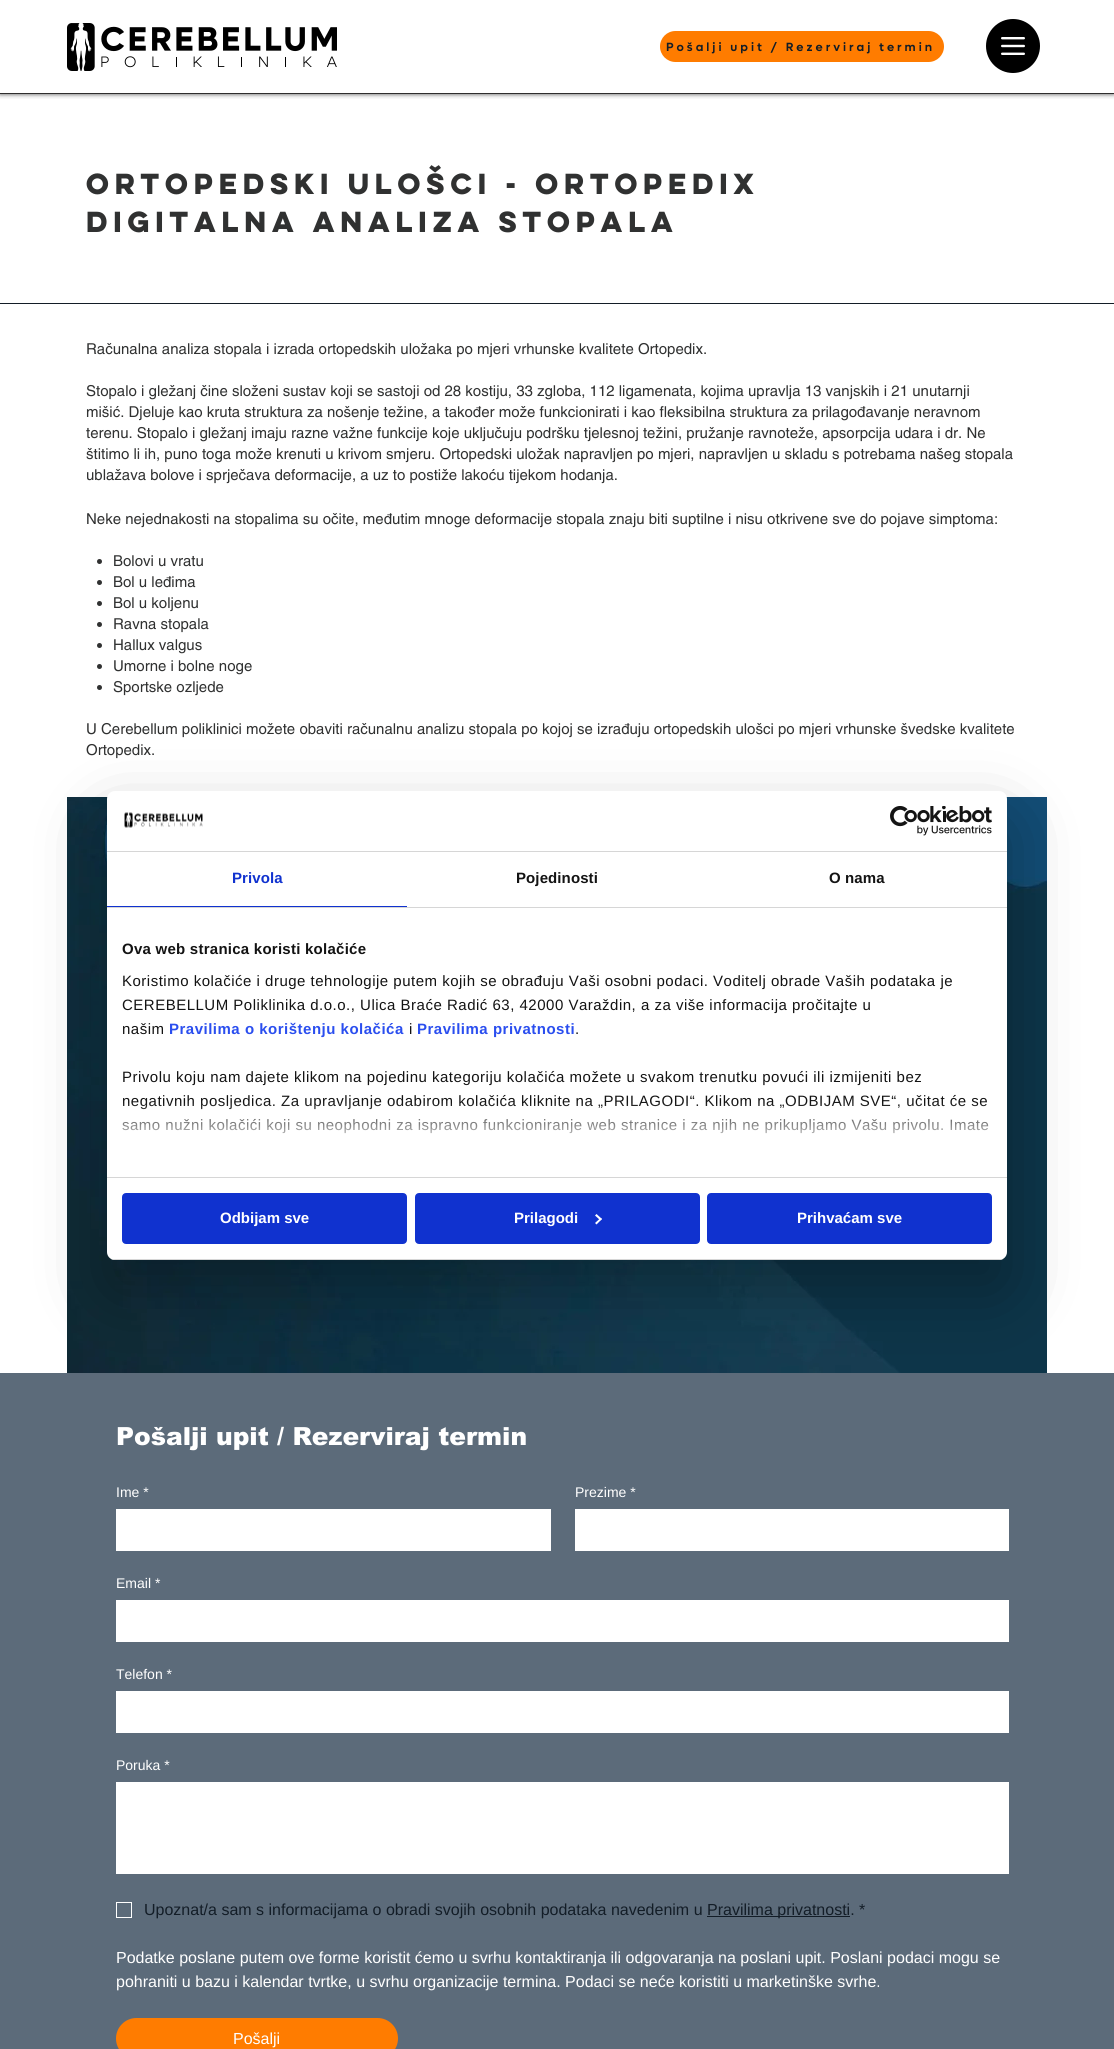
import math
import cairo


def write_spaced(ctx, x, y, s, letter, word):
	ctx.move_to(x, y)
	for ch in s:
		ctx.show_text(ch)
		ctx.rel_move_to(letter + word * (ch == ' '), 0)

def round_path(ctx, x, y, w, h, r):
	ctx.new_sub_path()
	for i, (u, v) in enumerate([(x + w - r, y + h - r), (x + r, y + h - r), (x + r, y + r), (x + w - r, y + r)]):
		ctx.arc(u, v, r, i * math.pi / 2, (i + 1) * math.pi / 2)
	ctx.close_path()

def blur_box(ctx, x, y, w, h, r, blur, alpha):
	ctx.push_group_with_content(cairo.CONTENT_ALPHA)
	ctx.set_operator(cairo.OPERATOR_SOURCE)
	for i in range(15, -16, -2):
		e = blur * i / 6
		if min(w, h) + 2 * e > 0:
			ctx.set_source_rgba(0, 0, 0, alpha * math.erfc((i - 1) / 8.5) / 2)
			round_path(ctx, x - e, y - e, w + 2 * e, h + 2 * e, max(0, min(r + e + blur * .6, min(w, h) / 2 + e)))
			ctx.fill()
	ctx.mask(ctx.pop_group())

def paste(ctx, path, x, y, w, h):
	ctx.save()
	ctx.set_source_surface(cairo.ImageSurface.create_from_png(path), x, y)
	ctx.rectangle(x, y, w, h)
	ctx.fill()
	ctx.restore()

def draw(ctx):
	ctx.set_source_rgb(1, 1, 1)
	ctx.paint()
	ctx.save()
	ctx.rectangle(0, 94, 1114, 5)
	ctx.clip()
	ctx.set_source_rgb(0, 0, 0)
	blur_box(ctx, 0, 0, 1114, 94, 0, 2.5, 0.7)
	ctx.restore()
	ctx.set_source_rgb(0.184, 0.18, 0.18)
	ctx.rectangle(0, 93, 1114, 1)
	ctx.fill()
	paste(ctx, 'media/1.png', 67, 23, 270, 48)
	ctx.set_source_rgb(1, 0.486, 0)
	round_path(ctx, 660, 31, 284, 31, 15.5)
	ctx.fill()
	ctx.select_font_face('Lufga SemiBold')
	ctx.set_font_size(12)
	ctx.set_source_rgb(0.078, 0.114, 0.153)
	write_spaced(ctx, 666, 51, 'Pošalji upit / Rezerviraj termin', 3, 0)
	ctx.set_source_rgb(0, 0, 0)
	ctx.new_path()
	ctx.arc(1013, 46, 27, 0, 2 * math.pi)
	ctx.fill()
	paste(ctx, 'media/2.png', 1001, 37, 24, 18)
	ctx.select_font_face('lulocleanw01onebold', cairo.FONT_SLANT_NORMAL, cairo.FONT_WEIGHT_BOLD)
	ctx.set_font_size(26)
	ctx.set_source_rgb(0.188, 0.192, 0.192)
	ctx.move_to(86, 194)
	ctx.show_text('ORTOPEDSKI ULOŠCI - ORTOPEDIX')
	ctx.move_to(86, 232)
	ctx.show_text('DIGITALNA ANALIZA STOPALA')
	ctx.set_source_rgb(0.078, 0.114, 0.153)
	ctx.rectangle(0, 303, 1114, 1)
	ctx.fill()
	ctx.select_font_face('helvetica')
	ctx.set_font_size(15)
	ctx.set_source_rgb(0.188, 0.192, 0.192)
	for x, y, s in [
		(86, 354, 'Računalna analiza stopala i izrada ortopedskih uložaka po mjeri vrhunske kvalitete Ortopedix.'),
		(86, 396, 'Stopalo i gležanj čine složeni sustav koji se sastoji od 28 kostiju, 33 zgloba, 112 ligamenata, kojima upravlja 13 vanjskih i 21 unutarnji'),
		(86, 417, 'mišić. Djeluje kao kruta struktura za nošenje težine, a također može funkcionirati i kao fleksibilna struktura za prilagođavanje neravnom'),
		(86, 438, 'terenu. Stopalo i gležanj imaju razne važne funkcije koje uključuju podršku tjelesnoj težini, pružanje ravnoteže, apsorpcija udara i dr. Ne'),
		(86, 459, 'štitimo li ih, puno toga može krenuti u krivom smjeru. Ortopedski uložak napravljen po mjeri, napravljen u skladu s potrebama našeg stopala'),
		(86, 480, 'ublažava bolove i sprječava deformacije, a uz to postiže lakoću tijekom hodanja.'),
		(86, 524, 'Neke nejednakosti na stopalima su očite, međutim mnoge deformacije stopala znaju biti suptilne i nisu otkrivene sve do pojave simptoma:'),
	]:
		ctx.move_to(x, y)
		ctx.show_text(s)
	ctx.new_path()
	ctx.arc(99.5, 561.5, 2.5, 0, 2 * math.pi)
	ctx.fill()
	ctx.move_to(113, 566)
	ctx.show_text('Bolovi u vratu')
	ctx.new_path()
	ctx.arc(99.5, 582.5, 2.5, 0, 2 * math.pi)
	ctx.fill()
	ctx.move_to(113, 587)
	ctx.show_text('Bol u leđima')
	ctx.new_path()
	ctx.arc(99.5, 603.5, 2.5, 0, 2 * math.pi)
	ctx.fill()
	ctx.move_to(113, 608)
	ctx.show_text('Bol u koljenu')
	ctx.new_path()
	ctx.arc(99.5, 624.5, 2.5, 0, 2 * math.pi)
	ctx.fill()
	ctx.move_to(113, 629)
	ctx.show_text('Ravna stopala')
	ctx.new_path()
	ctx.arc(99.5, 645.5, 2.5, 0, 2 * math.pi)
	ctx.fill()
	ctx.move_to(113, 650)
	ctx.show_text('Hallux valgus')
	ctx.new_path()
	ctx.arc(99.5, 666.5, 2.5, 0, 2 * math.pi)
	ctx.fill()
	ctx.move_to(113, 671)
	ctx.show_text('Umorne i bolne noge')
	ctx.new_path()
	ctx.arc(99.5, 687.5, 2.5, 0, 2 * math.pi)
	ctx.fill()
	for x, y, s in [
		(113, 692, 'Sportske ozljede'),
		(86, 734, 'U Cerebellum poliklinici možete obaviti računalnu analizu stopala po kojoj se izrađuju ortopedskih ulošci po mjeri vrhunske švedske kvalitete'),
		(86, 755, 'Ortopedix.'),
	]:
		ctx.move_to(x, y)
		ctx.show_text(s)
	paste(ctx, 'media/3.png', 67, 797, 980, 576)
	ctx.set_source_rgb(0.361, 0.42, 0.478)
	ctx.rectangle(0, 1373, 1114, 676)
	ctx.fill()
	ctx.select_font_face('arial Black')
	ctx.set_font_size(25)
	ctx.set_source_rgb(1, 1, 1)
	ctx.move_to(116, 1445)
	ctx.show_text('Pošalji upit / Rezerviraj termin')
	ctx.select_font_face('Liberation Sans')
	ctx.set_font_size(14)
	ctx.move_to(116, 1497)
	ctx.show_text('Ime *')
	ctx.move_to(575, 1497)
	ctx.show_text('Prezime *')
	ctx.rectangle(116, 1509, 435, 42)
	ctx.fill()
	ctx.rectangle(575, 1509, 434, 42)
	ctx.fill()
	ctx.move_to(116, 1588)
	ctx.show_text('Email *')
	ctx.rectangle(116, 1600, 893, 42)
	ctx.fill()
	ctx.move_to(116, 1679)
	ctx.show_text('Telefon *')
	ctx.rectangle(116, 1691, 893, 42)
	ctx.fill()
	ctx.move_to(116, 1770)
	ctx.show_text('Poruka *')
	ctx.rectangle(116, 1782, 893, 92)
	ctx.fill()
	ctx.rectangle(116.5, 1902.5, 15, 15)
	ctx.set_line_width(1)
	ctx.stroke()
	ctx.set_font_size(16)
	ctx.set_source_rgb(0.078, 0.114, 0.153)
	ctx.move_to(144, 1915)
	ctx.show_text('Upoznat/a sam s informacijama o obradi svojih osobnih podataka navedenim u')
	ctx.rectangle(707, 1916, 143, 1)
	ctx.fill()
	ctx.move_to(707, 1915)
	ctx.show_text('Pravilima privatnosti.')
	ctx.move_to(859, 1915)
	ctx.show_text('*')
	ctx.set_source_rgb(1, 1, 1)
	ctx.move_to(116, 1963)
	ctx.show_text('Podatke poslane putem ove forme koristit ćemo u svrhu kontaktiranja ili odgovaranja na poslani upit. Poslani podaci mogu se')
	ctx.move_to(116, 1987)
	ctx.show_text('pohraniti u bazu i kalendar tvrtke, u svrhu organizacije termina. Podaci se neće koristiti u marketinške svrhe.')
	ctx.set_source_rgb(1, 0.486, 0)
	round_path(ctx, 116, 2018, 282, 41, 20.5)
	ctx.fill()
	ctx.set_source_rgb(1, 1, 1)
	ctx.move_to(233, 2044)
	ctx.show_text('Pošalji')
	ctx.set_source_rgb(0, 0, 0)
	blur_box(ctx, 107, 823, 900, 469, 8, 34, 0.3)
	ctx.set_source_rgb(1, 1, 1)
	round_path(ctx, 107, 791, 900, 469, 8)
	ctx.fill()
	ctx.set_source_rgb(0.839, 0.839, 0.839)
	ctx.rectangle(107, 851, 900, 1)
	ctx.fill()
	paste(ctx, 'media/4.png', 124, 812, 79, 16)
	paste(ctx, 'media/5.png', 890, 806, 102, 30)
	ctx.rectangle(107, 907, 900, 1)
	ctx.fill()
	ctx.set_source_rgb(0.063, 0.196, 0.812)
	ctx.rectangle(107, 906, 300, 1)
	ctx.fill()
	ctx.select_font_face('Liberation Sans', cairo.FONT_SLANT_NORMAL, cairo.FONT_WEIGHT_BOLD)
	ctx.set_font_size(15)
	write_spaced(ctx, 232, 883, 'Privola', 0.1, 0)
	ctx.set_source_rgb(0.078, 0.078, 0.078)
	write_spaced(ctx, 516, 883, 'Pojedinosti', 0.1, 0)
	write_spaced(ctx, 829, 883, 'O nama', 0.1, 0)
	ctx.set_source_rgb(0.839, 0.839, 0.839)
	ctx.rectangle(107, 1177, 900, 1)
	ctx.fill()
	ctx.set_source_rgb(0.078, 0.078, 0.078)
	write_spaced(ctx, 122, 954, 'Ova web stranica koristi kolačiće', 0.25, 0)
	ctx.select_font_face('Liberation Sans')
	for x, y, s in [
		(122, 986, 'Koristimo kolačiće i druge tehnologije putem kojih se obrađuju Vaši osobni podaci. Voditelj obrade Vaših podataka je'),
		(122, 1010, 'CEREBELLUM Poliklinika d.o.o., Ulica Braće Radić 63, 42000 Varaždin, a za više informacija pročitajte u'),
		(122, 1034, 'našim'),
	]:
		write_spaced(ctx, x, y, s, 0.5, 0)
	ctx.select_font_face('Liberation Sans', cairo.FONT_SLANT_NORMAL, cairo.FONT_WEIGHT_BOLD)
	ctx.set_source_rgb(0.165, 0.306, 0.937)
	write_spaced(ctx, 169, 1034, 'Pravilima o korištenju kolačića', 0.5, 0)
	ctx.select_font_face('Liberation Sans')
	ctx.set_source_rgb(0.078, 0.078, 0.078)
	write_spaced(ctx, 409, 1034, 'i', 0.5, 0)
	ctx.select_font_face('Liberation Sans', cairo.FONT_SLANT_NORMAL, cairo.FONT_WEIGHT_BOLD)
	ctx.set_source_rgb(0.165, 0.306, 0.937)
	write_spaced(ctx, 417, 1034, 'Pravilima privatnosti', 0.5, 0)
	ctx.select_font_face('Liberation Sans')
	ctx.set_source_rgb(0.078, 0.078, 0.078)
	for x, y, s in [
		(575, 1034, '.'),
		(122, 1082, 'Privolu koju nam dajete klikom na pojedinu kategoriju kolačića možete u svakom trenutku povući ili izmijeniti bez'),
		(122, 1106, 'negativnih posljedica. Za upravljanje odabirom kolačića kliknite na „PRILAGODI“. Klikom na „ODBIJAM SVE“, učitat će se'),
		(122, 1130, 'samo nužni kolačići koji su neophodni za ispravno funkcioniranje web stranice i za njih ne prikupljamo Vašu privolu. Imate'),
	]:
		write_spaced(ctx, x, y, s, 0.5, 0)
	gradient = cairo.LinearGradient(551, 1177, 551, 1102)
	gradient.add_color_stop_rgba(0, 1, 1, 1, 1)
	gradient.add_color_stop_rgba(0.5, 1, 1, 1, 0.8)
	gradient.add_color_stop_rgba(1, 1, 1, 1, 0)
	ctx.set_source(gradient)
	ctx.rectangle(122, 1103, 867, 31)
	ctx.fill()
	ctx.save()
	round_path(ctx, 107, 791, 900, 469, 8)
	ctx.clip()
	ctx.set_source_rgb(0.839, 0.839, 0.839)
	ctx.rectangle(107, 1259, 900, 1)
	ctx.fill()
	ctx.restore()
	ctx.set_source_rgb(0.063, 0.196, 0.812)
	round_path(ctx, 123, 1194, 283, 49, 3)
	ctx.fill_preserve()
	ctx.set_line_width(2)
	ctx.stroke()
	ctx.select_font_face('Liberation Sans', cairo.FONT_SLANT_NORMAL, cairo.FONT_WEIGHT_BOLD)
	ctx.set_source_rgb(1, 1, 1)
	ctx.move_to(220, 1223)
	ctx.show_text('Odbijam sve')
	ctx.set_source_rgb(0.063, 0.196, 0.812)
	round_path(ctx, 416, 1194, 283, 49, 3)
	ctx.fill_preserve()
	ctx.stroke()
	ctx.set_source_rgb(1, 1, 1)
	ctx.move_to(514, 1223)
	ctx.show_text('Prilagodi')
	ctx.new_path()
	ctx.move_to(596.5, 1214)
	ctx.line_to(602, 1219)
	ctx.line_to(600.5, 1220.5)
	ctx.line_to(595, 1215.5)
	ctx.close_path()
	ctx.fill()
	ctx.new_path()
	ctx.move_to(600.5, 1218)
	ctx.line_to(602, 1219)
	ctx.line_to(596.5, 1224.5)
	ctx.line_to(595, 1223)
	ctx.close_path()
	ctx.fill()
	ctx.set_source_rgb(0.063, 0.196, 0.812)
	round_path(ctx, 708, 1194, 283, 49, 3)
	ctx.fill_preserve()
	ctx.stroke()
	ctx.set_source_rgb(1, 1, 1)
	ctx.move_to(797, 1223)
	ctx.show_text('Prihvaćam sve')


surface = cairo.ImageSurface(cairo.FORMAT_RGB24, 1114, 2049)
ctx = cairo.Context(surface)
options = cairo.FontOptions()
options.set_hint_metrics(cairo.HINT_METRICS_OFF)
options.set_hint_style(cairo.HINT_STYLE_NONE)
ctx.set_font_options(options)
ctx.set_miter_limit(4)
draw(ctx)
surface.write_to_png('image.png')
